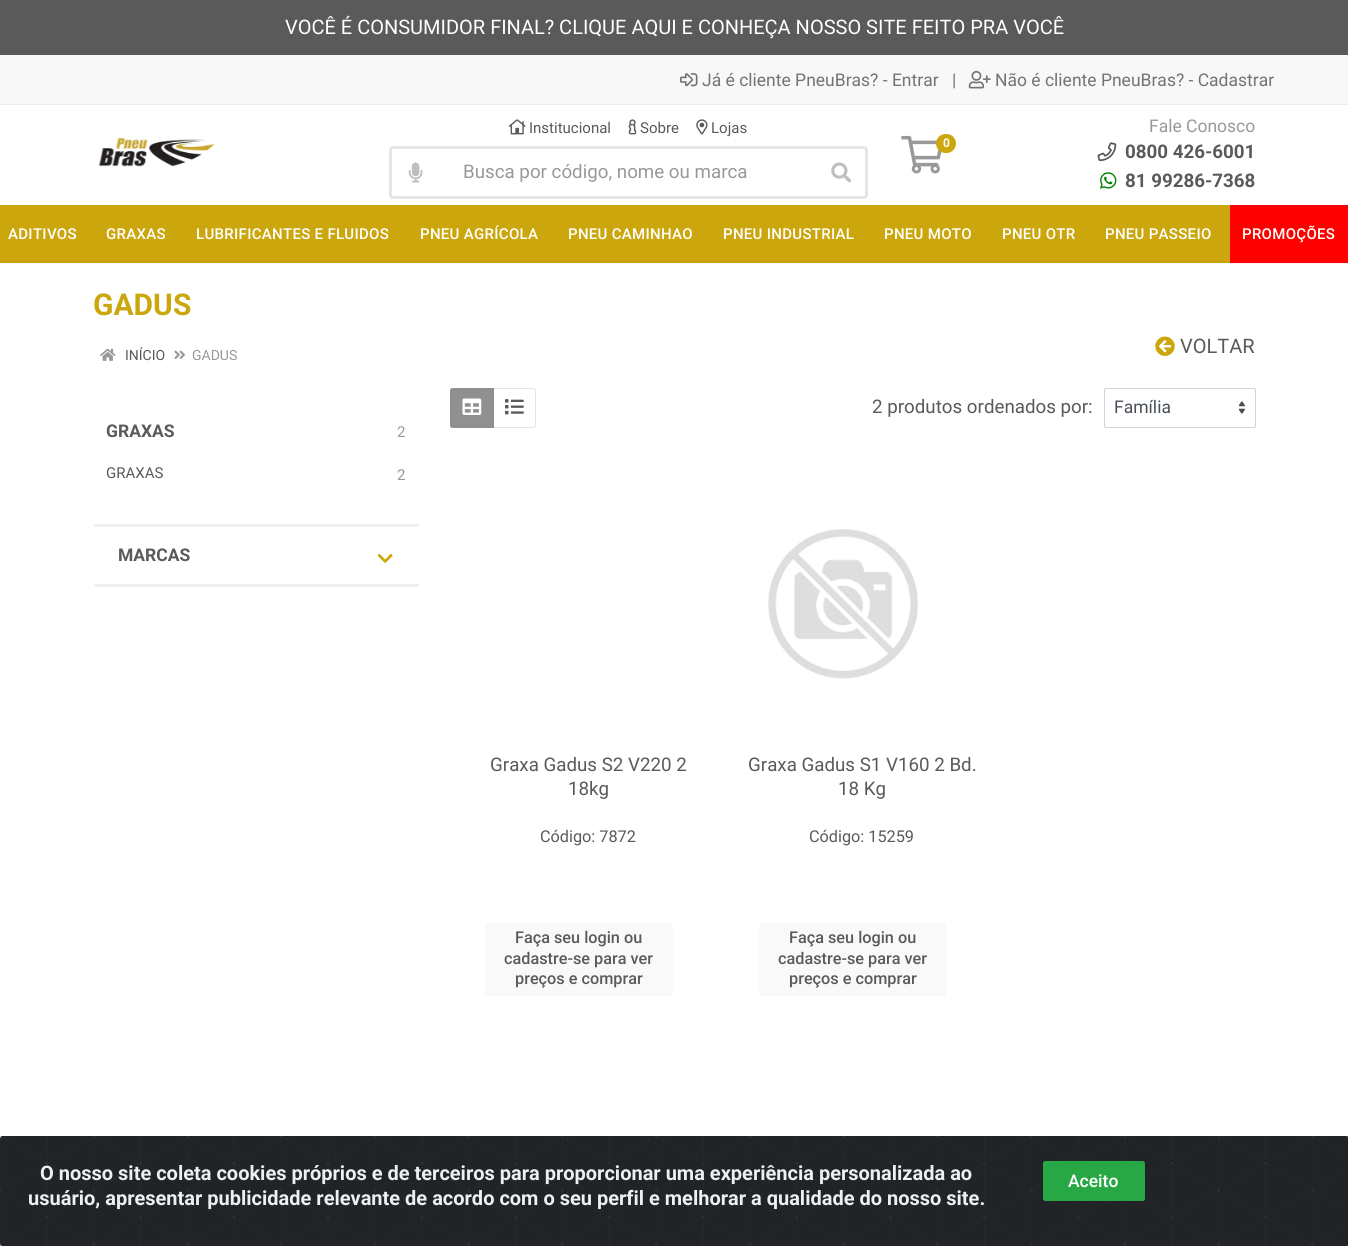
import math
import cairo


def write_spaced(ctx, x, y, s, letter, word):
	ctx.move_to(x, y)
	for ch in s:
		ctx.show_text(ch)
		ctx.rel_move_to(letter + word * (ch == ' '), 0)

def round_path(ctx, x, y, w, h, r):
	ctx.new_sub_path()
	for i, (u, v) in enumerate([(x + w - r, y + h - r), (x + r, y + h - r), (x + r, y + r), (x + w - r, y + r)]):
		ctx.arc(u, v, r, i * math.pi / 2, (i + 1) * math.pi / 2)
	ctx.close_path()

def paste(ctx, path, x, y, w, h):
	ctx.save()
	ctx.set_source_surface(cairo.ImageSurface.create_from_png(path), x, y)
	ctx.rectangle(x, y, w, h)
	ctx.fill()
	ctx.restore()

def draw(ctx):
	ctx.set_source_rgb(1, 1, 1)
	ctx.paint()
	ctx.set_source_rgb(0.353, 0.353, 0.353)
	ctx.rectangle(0, 0, 1348, 55)
	ctx.fill()
	ctx.select_font_face('Roboto')
	ctx.set_font_size(20)
	ctx.set_source_rgb(1, 1, 1)
	ctx.move_to(285, 34)
	ctx.show_text('VOCÊ É CONSUMIDOR FINAL? CLIQUE AQUI E CONHEÇA NOSSO SITE FEITO PRA VOCÊ')
	ctx.set_source_rgb(0.969, 0.969, 0.969)
	ctx.rectangle(0, 55, 1348, 49)
	ctx.fill()
	ctx.set_source_rgb(0.922, 0.922, 0.922)
	ctx.rectangle(0, 104, 1348, 1)
	ctx.fill()
	paste(ctx, 'media/1.png', 680, 73, 18, 14)
	ctx.set_font_size(17.5)
	ctx.set_source_rgb(0.451, 0.451, 0.451)
	ctx.move_to(702, 86)
	ctx.show_text('Já é cliente PneuBras? - Entrar')
	ctx.move_to(952, 86)
	ctx.show_text('|')
	paste(ctx, 'media/2.png', 968, 70, 23, 19)
	ctx.move_to(995, 86)
	ctx.show_text('Não é cliente PneuBras? - Cadastrar')
	paste(ctx, 'media/3.png', 98, 138, 117, 29)
	paste(ctx, 'media/4.png', 508, 119, 18, 16)
	ctx.set_font_size(15)
	ctx.set_source_rgb(0.353, 0.353, 0.353)
	ctx.move_to(529, 133)
	ctx.show_text('Institucional')
	paste(ctx, 'media/5.png', 628, 119, 9, 16)
	ctx.move_to(640, 133)
	ctx.show_text('Sobre')
	paste(ctx, 'media/6.png', 696, 119, 12, 16)
	ctx.move_to(711, 133)
	ctx.show_text('Lojas')
	round_path(ctx, 390.5, 147.5, 476, 50, 2.5)
	ctx.set_source_rgb(0.898, 0.898, 0.898)
	ctx.set_line_width(3)
	ctx.stroke()
	paste(ctx, 'media/7.png', 408, 162, 15, 21)
	ctx.set_font_size(18.75)
	ctx.set_source_rgb(0.6, 0.6, 0.6)
	ctx.move_to(463, 178)
	ctx.show_text('Busca por código, nome ou marca')
	paste(ctx, 'media/8.png', 831, 162, 21, 21)
	paste(ctx, 'media/9.png', 901, 135, 41, 39)
	ctx.set_source_rgb(0.796, 0.651, 0.047)
	round_path(ctx, 936, 134, 20, 19, 9.5)
	ctx.fill()
	ctx.select_font_face('Roboto', cairo.FONT_SLANT_NORMAL, cairo.FONT_WEIGHT_BOLD)
	ctx.set_font_size(12)
	ctx.set_source_rgb(1, 1, 1)
	ctx.move_to(943, 147)
	ctx.show_text('0')
	ctx.select_font_face('Roboto')
	ctx.set_font_size(17.5)
	ctx.set_source_rgb(0.6, 0.6, 0.6)
	ctx.move_to(1149, 132)
	ctx.show_text('Fale Conosco')
	paste(ctx, 'media/10.png', 1097, 142, 20, 20)
	ctx.select_font_face('Roboto', cairo.FONT_SLANT_NORMAL, cairo.FONT_WEIGHT_BOLD)
	ctx.set_font_size(18.75)
	ctx.set_source_rgb(0.353, 0.353, 0.353)
	ctx.move_to(1125, 158)
	ctx.show_text('0800 426-6001')
	paste(ctx, 'media/11.png', 1100, 172, 17, 17)
	ctx.move_to(1125, 187)
	ctx.show_text('81 99286-7368')
	ctx.set_source_rgb(0.961, 0.961, 0.961)
	ctx.new_path()
	ctx.move_to(0, 262)
	ctx.line_to(0, 264)
	ctx.line_to(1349, 264)
	ctx.line_to(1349, 206)
	ctx.line_to(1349, 262)
	ctx.close_path()
	ctx.fill()
	ctx.set_source_rgb(0.796, 0.651, 0.047)
	ctx.rectangle(0, 205, 1230, 58)
	ctx.fill()
	ctx.set_source_rgb(0.765, 0.624, 0.047)
	ctx.rectangle(0, 261, 1230, 1)
	ctx.fill()
	ctx.select_font_face('Roboto Medium')
	ctx.set_font_size(15)
	ctx.set_source_rgb(1, 1, 1)
	for x, y, s in [
		(8, 239, 'ADITIVOS'),
		(106, 239, 'GRAXAS'),
		(196, 239, 'LUBRIFICANTES E FLUIDOS'),
		(420, 239, 'PNEU AGRÍCOLA'),
		(568, 239, 'PNEU CAMINHAO'),
		(723, 239, 'PNEU INDUSTRIAL'),
		(884, 239, 'PNEU MOTO'),
		(1002, 239, 'PNEU OTR'),
		(1105, 239, 'PNEU PASSEIO'),
	]:
		write_spaced(ctx, x, y, s, 0.3, 0)
	ctx.set_source_rgb(1, 0, 0)
	ctx.rectangle(1230, 205, 118, 58)
	ctx.fill()
	ctx.set_source_rgb(1, 1, 1)
	write_spaced(ctx, 1242, 239, 'PROMOÇÕES', 0.3, 0)
	ctx.select_font_face('Roboto', cairo.FONT_SLANT_NORMAL, cairo.FONT_WEIGHT_BOLD)
	ctx.set_font_size(30)
	ctx.set_source_rgb(0.796, 0.651, 0.047)
	ctx.move_to(93, 315)
	ctx.show_text('GADUS')
	paste(ctx, 'media/12.png', 100, 348, 16, 13)
	ctx.select_font_face('Roboto')
	ctx.set_font_size(14)
	ctx.set_source_rgb(0.353, 0.353, 0.353)
	ctx.move_to(125, 360)
	ctx.show_text('INÍCIO')
	paste(ctx, 'media/13.png', 174, 350, 11, 10)
	ctx.set_source_rgb(0.6, 0.6, 0.6)
	ctx.move_to(192, 360)
	ctx.show_text('GADUS')
	paste(ctx, 'media/14.png', 1155, 336, 20, 20)
	ctx.set_font_size(20)
	ctx.set_source_rgb(0.353, 0.353, 0.353)
	ctx.move_to(1180, 353)
	ctx.show_text('VOLTAR')
	ctx.set_source_rgb(0.941, 0.941, 0.941)
	ctx.rectangle(94, 524, 325, 3)
	ctx.fill()
	ctx.select_font_face('Roboto', cairo.FONT_SLANT_NORMAL, cairo.FONT_WEIGHT_BOLD)
	ctx.set_font_size(17.5)
	ctx.set_source_rgb(0.353, 0.353, 0.353)
	ctx.move_to(106, 437)
	ctx.show_text('GRAXAS')
	ctx.select_font_face('Roboto')
	ctx.set_font_size(15)
	ctx.set_source_rgb(0.6, 0.6, 0.6)
	ctx.move_to(397, 437)
	ctx.show_text('2')
	ctx.set_source_rgb(0.353, 0.353, 0.353)
	ctx.move_to(106, 478)
	ctx.show_text('GRAXAS')
	ctx.set_source_rgb(0.6, 0.6, 0.6)
	ctx.move_to(397, 480)
	ctx.show_text('2')
	ctx.set_source_rgb(0.941, 0.941, 0.941)
	ctx.rectangle(94, 584, 325, 3)
	ctx.fill()
	ctx.select_font_face('Roboto', cairo.FONT_SLANT_NORMAL, cairo.FONT_WEIGHT_BOLD)
	ctx.set_font_size(17.5)
	ctx.set_source_rgb(0.353, 0.353, 0.353)
	ctx.move_to(118, 561)
	ctx.show_text('MARCAS')
	paste(ctx, 'media/15.png', 377, 554, 16, 9)
	ctx.new_path()
	ctx.move_to(493.5, 388.5)
	ctx.line_to(533.5, 388.5)
	ctx.curve_to(534.5, 388.5, 535.5, 389.5, 535.5, 390.5)
	ctx.line_to(535.5, 425.5)
	ctx.curve_to(535.5, 426.5, 534.5, 427.5, 533.5, 427.5)
	ctx.line_to(493.5, 427.5)
	ctx.close_path()
	ctx.set_source_rgb(0.898, 0.898, 0.898)
	ctx.set_line_width(1)
	ctx.stroke()
	ctx.set_source_rgb(0.565, 0.565, 0.565)
	ctx.new_path()
	ctx.move_to(452.5, 388.5)
	ctx.line_to(493.5, 388.5)
	ctx.line_to(493.5, 427.5)
	ctx.line_to(452.5, 427.5)
	ctx.curve_to(451.5, 427.5, 450.5, 426.5, 450.5, 425.5)
	ctx.line_to(450.5, 390.5)
	ctx.curve_to(450.5, 389.5, 451.5, 388.5, 452.5, 388.5)
	ctx.close_path()
	ctx.fill_preserve()
	ctx.stroke()
	paste(ctx, 'media/16.png', 462, 398, 20, 17)
	paste(ctx, 'media/17.png', 505, 399, 19, 16)
	ctx.select_font_face('Roboto')
	ctx.set_font_size(18.75)
	ctx.set_source_rgb(0.353, 0.353, 0.353)
	ctx.move_to(872, 413)
	ctx.show_text('2 produtos ordenados por:')
	paste(ctx, 'media/18.png', 1239, 401, 6, 13)
	round_path(ctx, 1104.5, 388.5, 151, 39, 2)
	ctx.set_source_rgb(0.808, 0.831, 0.855)
	ctx.stroke()
	ctx.set_font_size(17.5)
	ctx.set_source_rgb(0.286, 0.314, 0.341)
	ctx.move_to(1114, 413)
	ctx.show_text('Família')
	ctx.set_font_size(18.75)
	ctx.set_source_rgb(0.353, 0.353, 0.353)
	ctx.move_to(490, 771)
	ctx.show_text('Graxa Gadus S2 V220 2')
	ctx.move_to(568, 795)
	ctx.show_text('18kg')
	ctx.set_font_size(16.25)
	ctx.move_to(540, 842)
	ctx.show_text('Código: 7872')
	ctx.set_source_rgb(0.973, 0.976, 0.98)
	round_path(ctx, 485, 923, 188, 73, 2.5)
	ctx.fill()
	ctx.select_font_face('Roboto Medium')
	ctx.set_source_rgb(0.353, 0.353, 0.353)
	for x, y, s in [
		(515, 943, 'Faça seu login ou'),
		(504, 964, 'cadastre-se para ver'),
		(515, 984, 'preços e comprar'),
	]:
		ctx.move_to(x, y)
		ctx.show_text(s)
	paste(ctx, 'media/19.png', 768, 529, 150, 150)
	ctx.select_font_face('Roboto')
	ctx.set_font_size(18.75)
	ctx.move_to(748, 771)
	ctx.show_text('Graxa Gadus S1 V160 2 Bd.')
	ctx.move_to(838, 795)
	ctx.show_text('18 Kg')
	ctx.set_font_size(16.25)
	ctx.move_to(809, 842)
	ctx.show_text('Código: 15259')
	ctx.set_source_rgb(0.973, 0.976, 0.98)
	round_path(ctx, 759, 923, 187, 73, 2.5)
	ctx.fill()
	ctx.select_font_face('Roboto Medium')
	ctx.set_source_rgb(0.353, 0.353, 0.353)
	for x, y, s in [
		(789, 943, 'Faça seu login ou'),
		(778, 964, 'cadastre-se para ver'),
		(789, 984, 'preços e comprar'),
	]:
		ctx.move_to(x, y)
		ctx.show_text(s)
	paste(ctx, 'media/20.png', 0, 1136, 1348, 110)
	ctx.select_font_face('Roboto', cairo.FONT_SLANT_NORMAL, cairo.FONT_WEIGHT_BOLD)
	ctx.set_font_size(20)
	ctx.set_source_rgb(0.925, 0.941, 0.945)
	ctx.move_to(40, 1180)
	ctx.show_text('O nosso site coleta cookies próprios e de terceiros para proporcionar uma experiência personalizada ao')
	ctx.move_to(28, 1205)
	ctx.show_text('usuário, apresentar publicidade relevante de acordo com o seu perfil e melhorar a qualidade do nosso site.')
	ctx.set_source_rgb(0.157, 0.655, 0.271)
	round_path(ctx, 1043.5, 1161.5, 101, 39, 2)
	ctx.fill_preserve()
	ctx.stroke()
	ctx.select_font_face('Roboto Medium')
	ctx.set_font_size(17.5)
	ctx.set_source_rgb(1, 1, 1)
	ctx.move_to(1068, 1187)
	ctx.show_text('Aceito')


surface = cairo.ImageSurface(cairo.FORMAT_RGB24, 1348, 1246)
ctx = cairo.Context(surface)
options = cairo.FontOptions()
options.set_hint_metrics(cairo.HINT_METRICS_OFF)
options.set_hint_style(cairo.HINT_STYLE_NONE)
ctx.set_font_options(options)
ctx.set_miter_limit(4)
draw(ctx)
surface.write_to_png('image.png')
